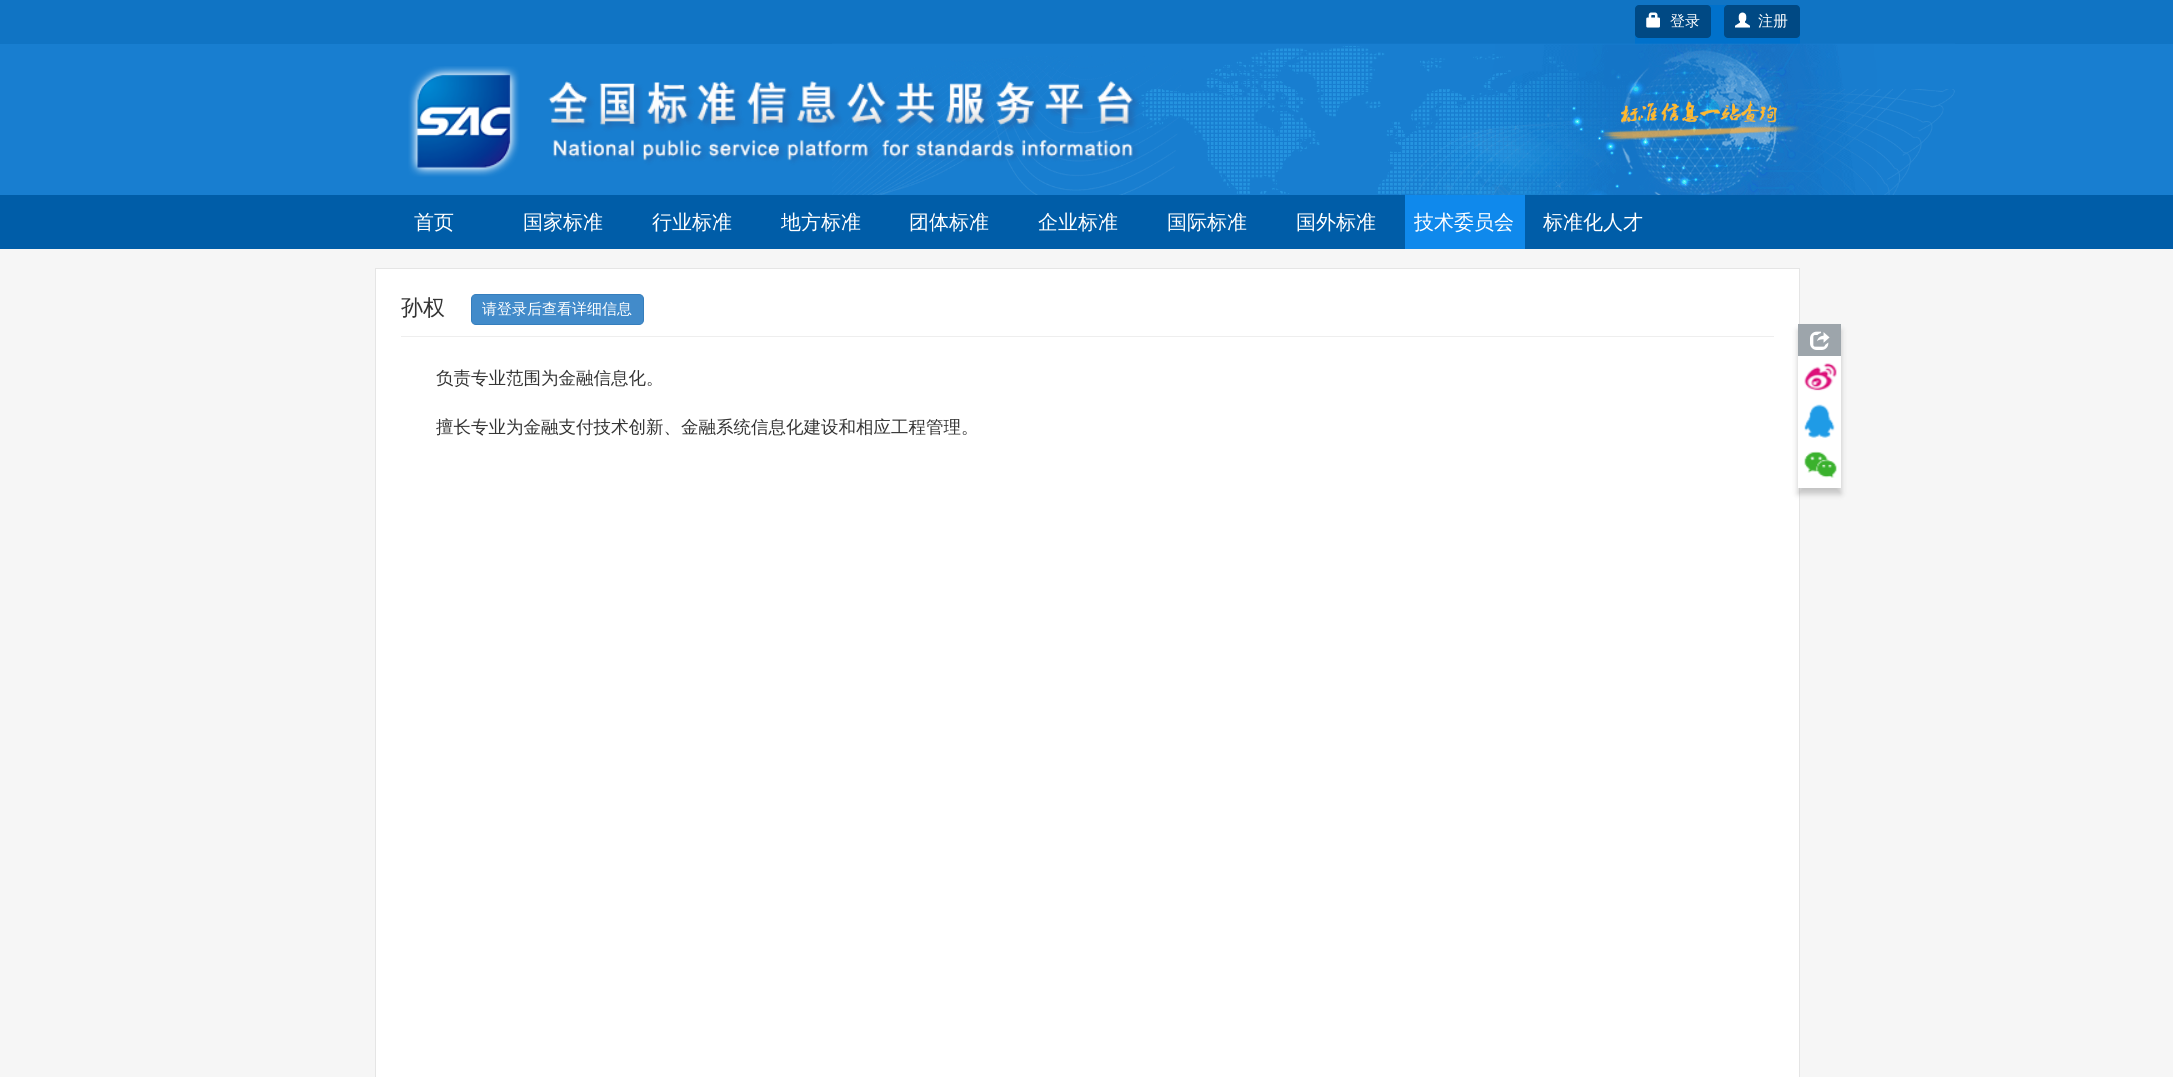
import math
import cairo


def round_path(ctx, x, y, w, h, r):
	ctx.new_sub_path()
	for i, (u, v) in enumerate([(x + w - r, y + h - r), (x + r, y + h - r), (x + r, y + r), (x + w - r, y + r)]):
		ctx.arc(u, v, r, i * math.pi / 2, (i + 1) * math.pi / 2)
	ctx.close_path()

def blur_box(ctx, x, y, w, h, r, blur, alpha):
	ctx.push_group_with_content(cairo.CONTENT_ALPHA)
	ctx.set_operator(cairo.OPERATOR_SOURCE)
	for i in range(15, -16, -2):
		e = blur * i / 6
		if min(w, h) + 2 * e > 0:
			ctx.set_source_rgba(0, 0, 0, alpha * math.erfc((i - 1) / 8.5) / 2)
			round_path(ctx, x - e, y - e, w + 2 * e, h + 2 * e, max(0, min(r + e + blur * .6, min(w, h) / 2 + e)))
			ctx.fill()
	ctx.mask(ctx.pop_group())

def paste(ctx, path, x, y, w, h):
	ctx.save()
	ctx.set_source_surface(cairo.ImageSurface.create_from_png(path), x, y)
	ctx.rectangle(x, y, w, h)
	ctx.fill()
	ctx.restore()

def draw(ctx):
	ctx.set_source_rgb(0.961, 0.961, 0.961)
	ctx.paint()
	ctx.set_source_rgb(0.094, 0.494, 0.816)
	ctx.rectangle(0, 44, 2173, 151)
	ctx.fill()
	ctx.set_source_rgb(0.063, 0.455, 0.769)
	ctx.rectangle(0, 0, 2173, 44)
	ctx.fill()
	ctx.set_source_rgb(0, 0.443, 0.796)
	ctx.new_path()
	ctx.move_to(1639, 5)
	ctx.line_to(1796, 5)
	ctx.curve_to(1798, 5, 1800, 7, 1800, 9)
	ctx.line_to(1800, 44)
	ctx.line_to(1635, 44)
	ctx.line_to(1635, 9)
	ctx.curve_to(1635, 7, 1637, 5, 1639, 5)
	ctx.close_path()
	ctx.fill()
	ctx.set_source_rgb(0, 0.286, 0.518)
	round_path(ctx, 1635, 5, 76, 33, 4)
	ctx.fill()
	paste(ctx, 'media/1.png', 1646, 12, 14, 16)
	ctx.select_font_face('WenQuanYi Zen Hei Medium')
	ctx.set_font_size(15)
	ctx.set_source_rgb(1, 1, 1)
	ctx.move_to(1670, 26)
	ctx.show_text('登录')
	ctx.set_source_rgb(0, 0.286, 0.518)
	round_path(ctx, 1724, 5, 76, 33, 4)
	ctx.fill()
	paste(ctx, 'media/2.png', 1735, 12, 15, 16)
	ctx.set_source_rgb(1, 1, 1)
	ctx.move_to(1758, 26)
	ctx.show_text('注册')
	paste(ctx, 'media/4.png', 832, 43, 1123, 152)
	paste(ctx, 'media/3.png', 408, 66, 731, 111)
	ctx.set_source_rgb(0, 0.365, 0.659)
	ctx.rectangle(0, 195, 2173, 54)
	ctx.fill()
	ctx.set_font_size(20)
	ctx.set_source_rgb(1, 1, 1)
	for x, y, s in [
		(414, 229, '首页'),
		(523, 229, '国家标准'),
		(652, 229, '行业标准'),
		(781, 229, '地方标准'),
		(909, 229, '团体标准'),
		(1038, 229, '企业标准'),
		(1167, 229, '国际标准'),
		(1296, 229, '国外标准'),
	]:
		ctx.move_to(x, y)
		ctx.show_text(s)
	ctx.set_source_rgb(0.059, 0.537, 0.922)
	ctx.rectangle(1405, 195, 120, 54)
	ctx.fill()
	ctx.set_source_rgb(1, 1, 1)
	ctx.move_to(1414, 229)
	ctx.show_text('技术委员会')
	ctx.move_to(1543, 229)
	ctx.show_text('标准化人才')
	ctx.rectangle(375.5, 268.5, 1424, 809)
	ctx.fill_preserve()
	ctx.set_source_rgb(0.898, 0.898, 0.898)
	ctx.set_line_width(1)
	ctx.stroke()
	ctx.set_source_rgb(0.933, 0.933, 0.933)
	ctx.rectangle(401, 336, 1373, 1)
	ctx.fill()
	ctx.set_font_size(22)
	ctx.set_source_rgb(0.2, 0.2, 0.2)
	ctx.move_to(401, 315)
	ctx.show_text('孙权')
	ctx.set_source_rgb(0.259, 0.545, 0.792)
	round_path(ctx, 471.5, 294.5, 172, 30, 4.5)
	ctx.fill_preserve()
	ctx.set_source_rgb(0.208, 0.494, 0.741)
	ctx.stroke()
	ctx.set_font_size(15)
	ctx.set_source_rgb(1, 1, 1)
	ctx.move_to(482, 314)
	ctx.show_text('请登录后查看详细信息')
	ctx.set_font_size(17.5)
	ctx.set_source_rgb(0.2, 0.2, 0.2)
	ctx.move_to(436, 384)
	ctx.show_text('负责专业范围为金融信息化。')
	ctx.move_to(436, 433)
	ctx.show_text('擅长专业为金融支付技术创新、金融系统信息化建设和相应工程管理。')
	ctx.set_source_rgb(0.573, 0.573, 0.573)
	blur_box(ctx, 1798, 330, 43, 164, 0, 3, 0.5)
	ctx.set_source_rgb(0.616, 0.647, 0.671)
	ctx.rectangle(1798, 324, 43, 32)
	ctx.fill()
	paste(ctx, 'media/5.png', 1810, 331, 20, 19)
	ctx.set_source_rgb(1, 1, 1)
	ctx.rectangle(1798, 356, 43, 132)
	ctx.fill()
	paste(ctx, 'media/6.png', 1804, 363, 33, 28)
	paste(ctx, 'media/7.png', 1804, 404, 31, 34)
	paste(ctx, 'media/8.png', 1804, 451, 33, 27)


surface = cairo.ImageSurface(cairo.FORMAT_RGB24, 2173, 1077)
ctx = cairo.Context(surface)
options = cairo.FontOptions()
options.set_hint_metrics(cairo.HINT_METRICS_OFF)
options.set_hint_style(cairo.HINT_STYLE_NONE)
ctx.set_font_options(options)
ctx.set_miter_limit(4)
draw(ctx)
surface.write_to_png('image.png')
